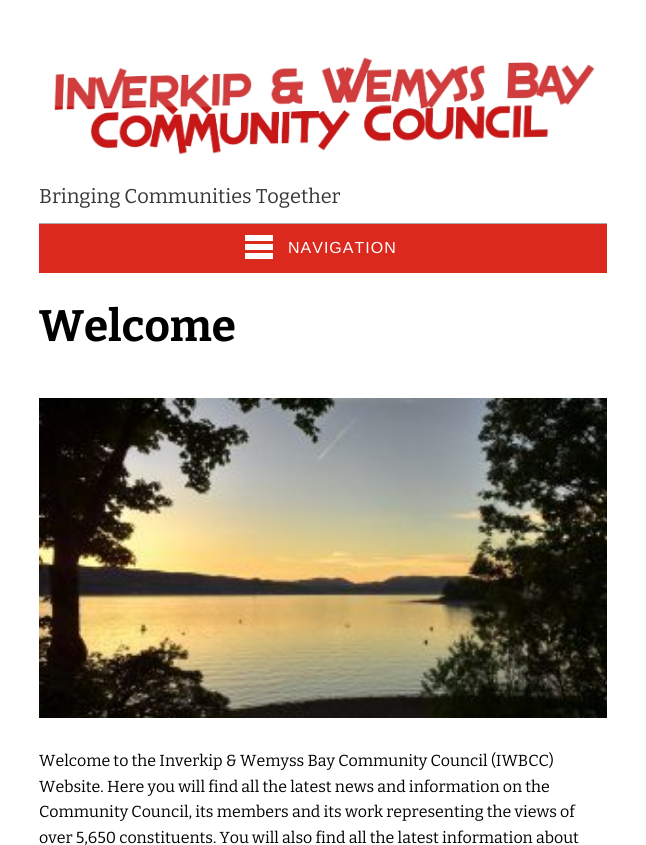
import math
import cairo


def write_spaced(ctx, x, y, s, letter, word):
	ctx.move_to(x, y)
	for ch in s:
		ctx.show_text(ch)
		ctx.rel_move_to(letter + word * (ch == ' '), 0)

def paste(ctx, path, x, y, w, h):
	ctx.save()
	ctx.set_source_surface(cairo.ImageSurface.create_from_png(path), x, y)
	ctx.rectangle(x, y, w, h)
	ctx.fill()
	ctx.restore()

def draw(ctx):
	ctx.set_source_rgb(1, 1, 1)
	ctx.paint()
	paste(ctx, 'media/1.png', 54, 57, 541, 98)
	ctx.select_font_face('Bitter')
	ctx.set_font_size(20)
	ctx.set_source_rgb(0.212, 0.212, 0.212)
	ctx.move_to(39, 203)
	ctx.show_text('Bringing Communities Together')
	ctx.set_source_rgb(0.667, 0.667, 0.667)
	ctx.rectangle(39, 223, 568, 1)
	ctx.fill()
	ctx.set_source_rgb(0.863, 0.161, 0.118)
	ctx.rectangle(39, 224, 568, 49)
	ctx.fill()
	paste(ctx, 'media/2.png', 245, 235, 28, 24)
	ctx.select_font_face('Liberation Sans')
	ctx.set_font_size(16)
	ctx.set_source_rgb(1, 1, 1)
	write_spaced(ctx, 288, 253, 'NAVIGATION', 1, 0)
	ctx.select_font_face('Bitter', cairo.FONT_SLANT_NORMAL, cairo.FONT_WEIGHT_BOLD)
	ctx.set_font_size(44)
	ctx.set_source_rgb(0, 0, 0)
	ctx.move_to(39, 341)
	ctx.show_text('Welcome')
	paste(ctx, 'media/3.png', 39, 398, 568, 320)
	ctx.select_font_face('Bitter')
	ctx.set_font_size(16)
	for x, y, s in [
		(39, 766, 'Welcome to the Inverkip & Wemyss Bay Community Council (IWBCC)'),
		(39, 792, 'Website. Here you will find all the latest news and information on the'),
		(39, 817, 'Community Council, its members and its work representing the views of'),
		(39, 843, 'over 5,650 constituents. You will also find all the latest information about'),
	]:
		ctx.move_to(x, y)
		ctx.show_text(s)


surface = cairo.ImageSurface(cairo.FORMAT_RGB24, 646, 845)
ctx = cairo.Context(surface)
options = cairo.FontOptions()
options.set_hint_metrics(cairo.HINT_METRICS_OFF)
options.set_hint_style(cairo.HINT_STYLE_NONE)
ctx.set_font_options(options)
ctx.set_miter_limit(4)
draw(ctx)
surface.write_to_png('image.png')
